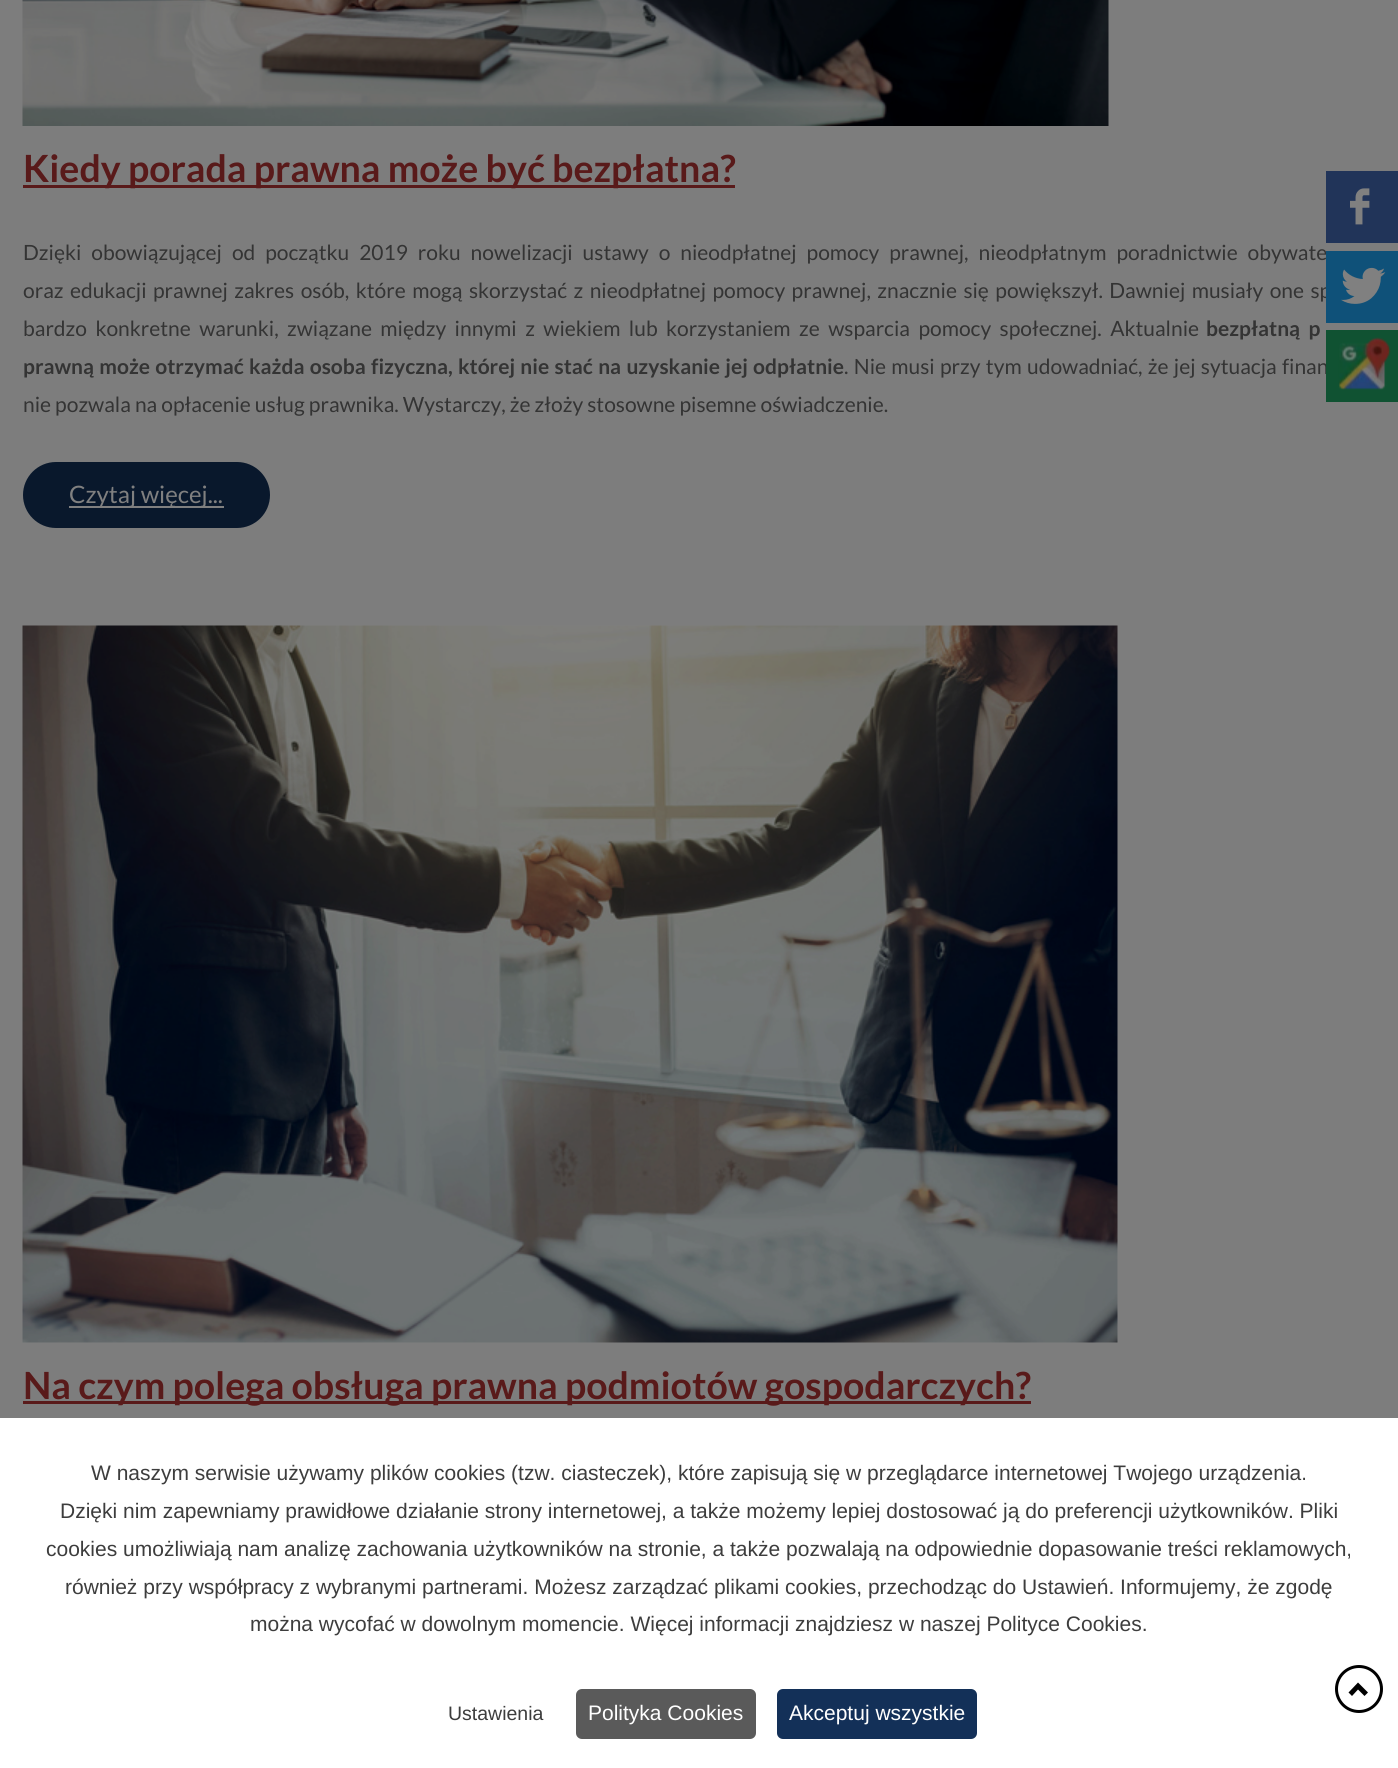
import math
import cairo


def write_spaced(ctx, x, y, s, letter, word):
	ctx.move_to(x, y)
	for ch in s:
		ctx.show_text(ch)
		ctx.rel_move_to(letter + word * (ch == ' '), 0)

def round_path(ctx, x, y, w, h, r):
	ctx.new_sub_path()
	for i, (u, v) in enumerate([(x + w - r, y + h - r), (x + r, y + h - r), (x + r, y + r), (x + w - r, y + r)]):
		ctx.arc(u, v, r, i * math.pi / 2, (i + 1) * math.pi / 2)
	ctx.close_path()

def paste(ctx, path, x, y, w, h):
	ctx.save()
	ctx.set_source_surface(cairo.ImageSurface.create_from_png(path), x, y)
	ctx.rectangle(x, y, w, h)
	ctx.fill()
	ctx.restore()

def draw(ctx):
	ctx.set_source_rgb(0.49, 0.49, 0.49)
	ctx.paint()
	paste(ctx, 'media/1.png', 22, 0, 1087, 126)
	ctx.set_source_rgb(0.349, 0.102, 0.102)
	ctx.rectangle(23, 185, 712, 3)
	ctx.fill()
	ctx.select_font_face('Lato', cairo.FONT_SLANT_NORMAL, cairo.FONT_WEIGHT_BOLD)
	ctx.set_font_size(37.5)
	ctx.move_to(23, 182)
	ctx.show_text('Kiedy porada prawna może być bezpłatna?')
	ctx.select_font_face('Lato')
	ctx.set_font_size(21)
	ctx.set_source_rgb(0.204, 0.204, 0.204)
	write_spaced(ctx, 23, 260, 'Dzięki obowiązującej od początku 2019 roku nowelizacji ustawy o nieodpłatnej pomocy prawnej, nieodpłatnym poradnictwie obywate', 0, 5.9)
	write_spaced(ctx, 23, 298, 'oraz edukacji prawnej zakres osób, które mogą skorzystać z nieodpłatnej pomocy prawnej, znacznie się powiększył. Dawniej musiały one sp', 0, 2.4)
	write_spaced(ctx, 23, 336, 'bardzo konkretne warunki, związane między innymi z wiekiem lub korzystaniem ze wsparcia pomocy społecznej. Aktualnie', 0, 4.4)
	ctx.select_font_face('Lato', cairo.FONT_SLANT_NORMAL, cairo.FONT_WEIGHT_BOLD)
	write_spaced(ctx, 1206, 336, 'bezpłatną p', 0, 4.4)
	write_spaced(ctx, 23, 374, 'prawną może otrzymać każda osoba fizyczna, której nie stać na uzyskanie jej odpłatnie', 0, 1.25)
	ctx.select_font_face('Lato')
	write_spaced(ctx, 844, 374, '. Nie musi przy tym udowadniać, że jej sytuacja finan', 0, 1.25)
	ctx.move_to(23, 412)
	ctx.show_text('nie pozwala na opłacenie usług prawnika. Wystarczy, że złoży stosowne pisemne oświadczenie.')
	ctx.set_source_rgb(0.039, 0.094, 0.173)
	round_path(ctx, 24, 463, 245, 64, 32)
	ctx.fill_preserve()
	ctx.stroke()
	ctx.set_source_rgb(0.502, 0.502, 0.502)
	ctx.rectangle(69, 506, 155, 2)
	ctx.fill()
	ctx.set_font_size(24)
	ctx.move_to(69, 503)
	ctx.show_text('Czytaj więcej...')
	paste(ctx, 'media/2.png', 22, 625, 1096, 718)
	ctx.set_source_rgb(0.349, 0.102, 0.102)
	ctx.rectangle(23, 1401, 1008, 3)
	ctx.fill()
	ctx.select_font_face('Lato', cairo.FONT_SLANT_NORMAL, cairo.FONT_WEIGHT_BOLD)
	ctx.set_font_size(37.5)
	ctx.move_to(23, 1399)
	ctx.show_text('Na czym polega obsługa prawna podmiotów gospodarczych?')
	ctx.set_source_rgb(1, 1, 1)
	ctx.rectangle(0, 1418, 1398, 350)
	ctx.fill()
	ctx.arc(1359, 1689, 22.5, 0, 2 * math.pi)
	ctx.set_source_rgb(0, 0, 0)
	ctx.set_line_width(3)
	ctx.stroke()
	ctx.new_path()
	ctx.move_to(1368, 1692.5)
	ctx.line_to(1364.5, 1696)
	ctx.line_to(1358, 1689.5)
	ctx.line_to(1352, 1696)
	ctx.line_to(1348.5, 1692.5)
	ctx.line_to(1358, 1682.5)
	ctx.close_path()
	ctx.fill()
	ctx.set_source_rgb(0.129, 0.204, 0.349)
	ctx.rectangle(1326, 171, 72, 72)
	ctx.fill()
	paste(ctx, 'media/3.png', 1350, 188, 20, 37)
	ctx.set_source_rgb(0.059, 0.318, 0.475)
	ctx.rectangle(1326, 251, 72, 72)
	ctx.fill()
	paste(ctx, 'media/4.png', 1341, 267, 45, 37)
	ctx.set_source_rgb(0.063, 0.322, 0.196)
	ctx.rectangle(1326, 330, 72, 72)
	ctx.fill()
	paste(ctx, 'media/5.png', 1338, 337, 53, 53)
	ctx.select_font_face('Liberation Sans')
	ctx.set_font_size(21)
	ctx.set_source_rgb(0.239, 0.239, 0.239)
	for x, y, s in [
		(91, 1480, 'W naszym serwisie używamy plików cookies (tzw. ciasteczek), które zapisują się w przeglądarce internetowej Twojego urządzenia.'),
		(60, 1518, 'Dzięki nim zapewniamy prawidłowe działanie strony internetowej, a także możemy lepiej dostosować ją do preferencji użytkowników. Pliki'),
		(46, 1556, 'cookies umożliwiają nam analizę zachowania użytkowników na stronie, a także pozwalają na odpowiednie dopasowanie treści reklamowych,'),
		(65, 1594, 'również przy współpracy z wybranymi partnerami. Możesz zarządzać plikami cookies, przechodząc do Ustawień. Informujemy, że zgodę'),
		(250, 1631, 'można wycofać w dowolnym momencie. Więcej informacji znajdziesz w naszej Polityce Cookies.'),
	]:
		ctx.move_to(x, y)
		ctx.show_text(s)
	ctx.set_font_size(19.5)
	ctx.move_to(448, 1720)
	ctx.show_text('Ustawienia')
	ctx.set_source_rgb(0.353, 0.353, 0.353)
	round_path(ctx, 576, 1689, 180, 50, 6)
	ctx.fill()
	ctx.set_font_size(21)
	ctx.set_source_rgb(1, 1, 1)
	ctx.move_to(588, 1720)
	ctx.show_text('Polityka Cookies')
	ctx.set_source_rgb(0.075, 0.188, 0.345)
	round_path(ctx, 777, 1689, 200, 50, 6)
	ctx.fill()
	ctx.set_source_rgb(1, 1, 1)
	ctx.move_to(789, 1720)
	ctx.show_text('Akceptuj wszystkie')


surface = cairo.ImageSurface(cairo.FORMAT_RGB24, 1398, 1768)
ctx = cairo.Context(surface)
options = cairo.FontOptions()
options.set_hint_metrics(cairo.HINT_METRICS_OFF)
options.set_hint_style(cairo.HINT_STYLE_NONE)
ctx.set_font_options(options)
ctx.set_miter_limit(4)
draw(ctx)
surface.write_to_png('image.png')
